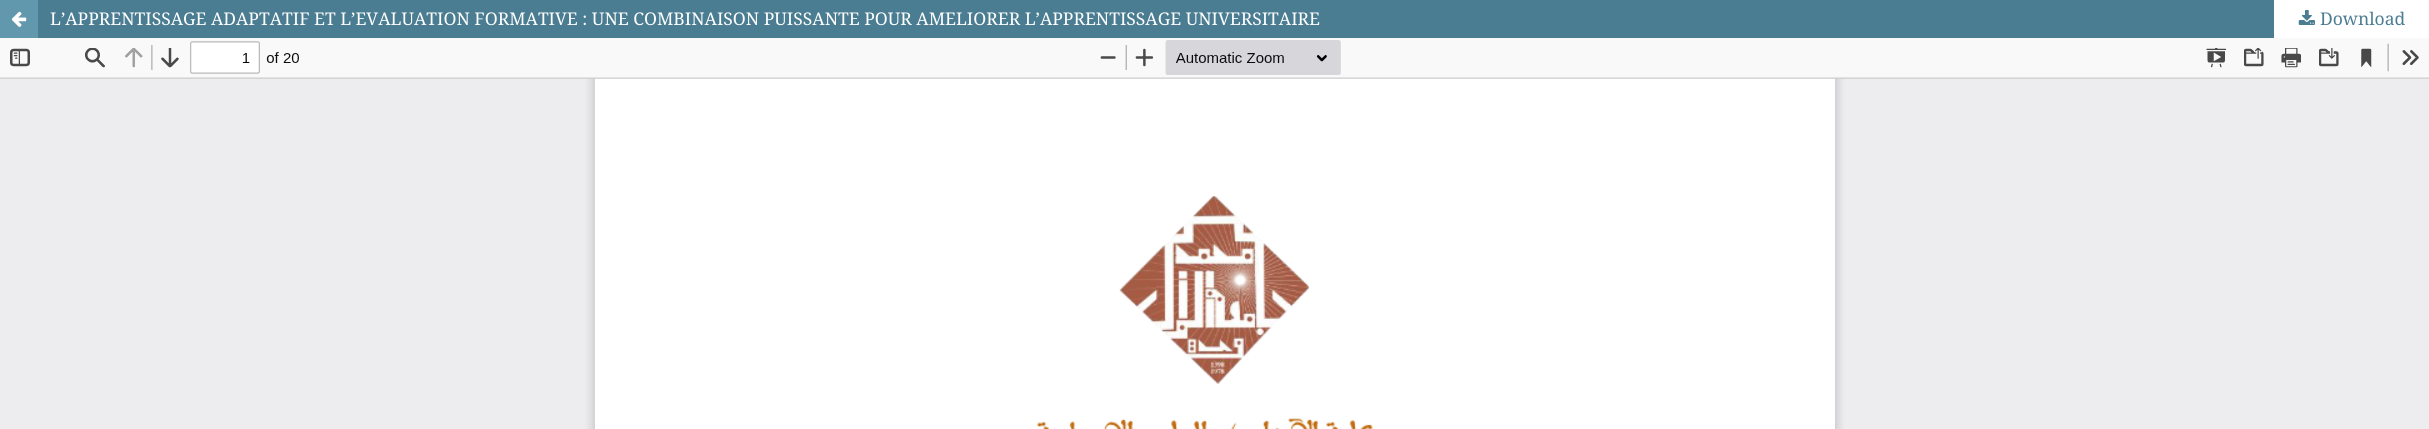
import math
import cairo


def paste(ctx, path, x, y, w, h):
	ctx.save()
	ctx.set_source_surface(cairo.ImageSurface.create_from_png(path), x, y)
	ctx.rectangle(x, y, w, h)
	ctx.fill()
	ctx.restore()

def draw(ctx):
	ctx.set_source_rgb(1, 1, 1)
	ctx.paint()
	ctx.set_source_rgb(0.294, 0.49, 0.573)
	ctx.rectangle(38, 0, 2236, 38)
	ctx.fill()
	ctx.set_source_rgb(0.384, 0.596, 0.682)
	ctx.rectangle(0, 0, 38, 38)
	ctx.fill()
	paste(ctx, 'media/1.png', 11, 11, 16, 16)
	ctx.select_font_face('Noto Serif')
	ctx.set_font_size(17.5)
	ctx.set_source_rgb(1, 1, 1)
	ctx.move_to(50, 25)
	ctx.show_text('L’APPRENTISSAGE ADAPTATIF ET L’EVALUATION FORMATIVE : UNE COMBINAISON PUISSANTE POUR AMELIORER L’APPRENTISSAGE UNIVERSITAIRE')
	paste(ctx, 'media/2.png', 2298, 10, 17, 15)
	ctx.set_source_rgb(0.294, 0.49, 0.573)
	ctx.move_to(2320, 25)
	ctx.show_text('Download')
	paste(ctx, 'media/3.png', 0, 38, 2429, 391)


surface = cairo.ImageSurface(cairo.FORMAT_RGB24, 2429, 429)
ctx = cairo.Context(surface)
options = cairo.FontOptions()
options.set_hint_metrics(cairo.HINT_METRICS_OFF)
options.set_hint_style(cairo.HINT_STYLE_NONE)
ctx.set_font_options(options)
ctx.set_miter_limit(4)
draw(ctx)
surface.write_to_png('image.png')
